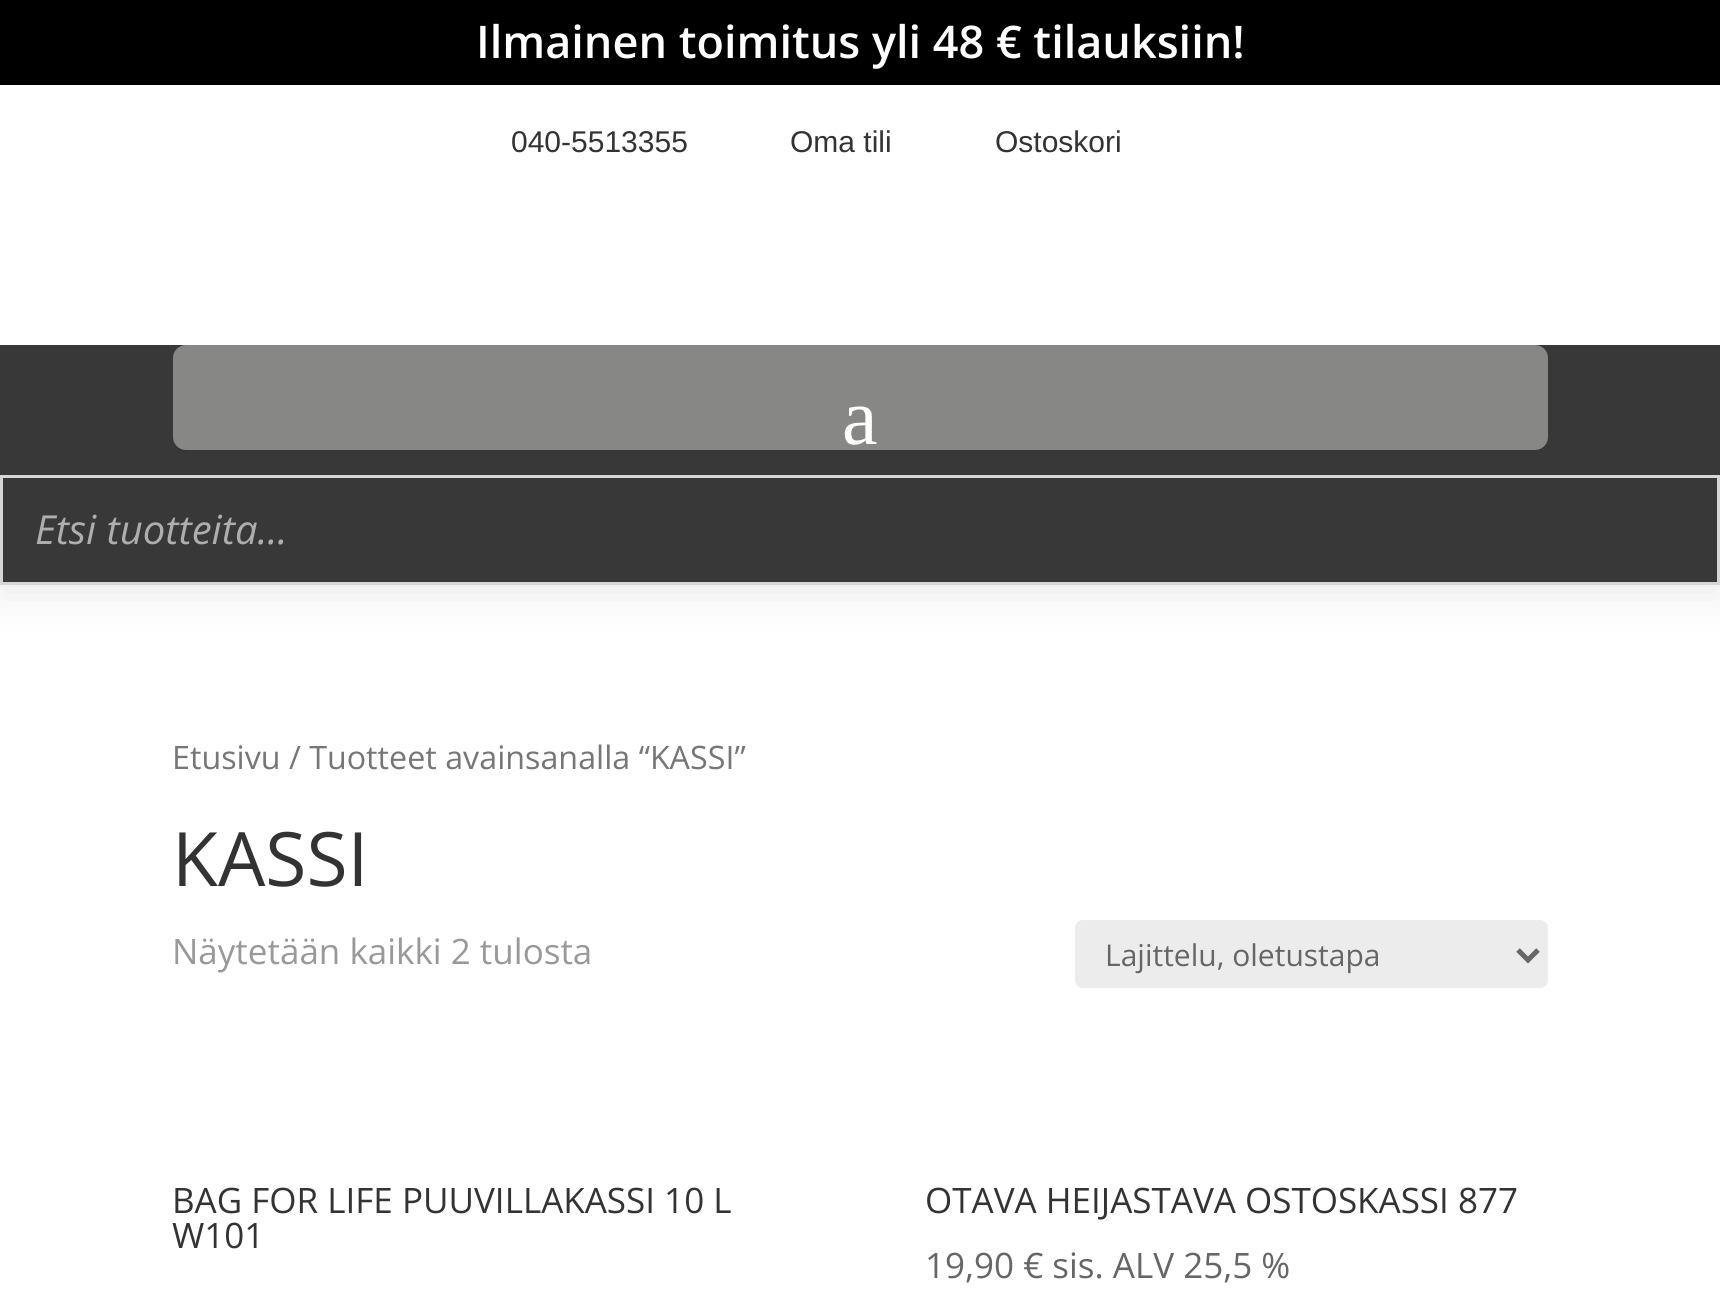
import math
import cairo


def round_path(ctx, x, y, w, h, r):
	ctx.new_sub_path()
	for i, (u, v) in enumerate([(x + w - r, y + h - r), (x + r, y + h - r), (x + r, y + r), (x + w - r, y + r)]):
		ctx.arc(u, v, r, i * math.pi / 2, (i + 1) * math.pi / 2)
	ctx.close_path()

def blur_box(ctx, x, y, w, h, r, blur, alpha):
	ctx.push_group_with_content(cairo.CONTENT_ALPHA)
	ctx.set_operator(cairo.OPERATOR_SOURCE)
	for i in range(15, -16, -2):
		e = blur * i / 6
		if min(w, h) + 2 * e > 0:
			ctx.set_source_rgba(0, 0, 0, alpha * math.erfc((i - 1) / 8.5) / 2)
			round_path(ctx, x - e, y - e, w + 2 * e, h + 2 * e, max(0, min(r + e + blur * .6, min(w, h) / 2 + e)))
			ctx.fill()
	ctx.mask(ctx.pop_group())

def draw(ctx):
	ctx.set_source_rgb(1, 1, 1)
	ctx.paint()
	ctx.set_source_rgb(0, 0, 0)
	ctx.rectangle(0, 0, 1720, 85)
	ctx.fill()
	ctx.select_font_face('Open Sans SemiBold')
	ctx.set_font_size(45)
	ctx.set_source_rgb(1, 1, 1)
	ctx.move_to(476, 58)
	ctx.show_text('Ilmainen toimitus yli 48 € tilauksiin!')
	ctx.save()
	ctx.set_fill_rule(cairo.FILL_RULE_EVEN_ODD)
	ctx.new_path()
	ctx.move_to(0, 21)
	ctx.line_to(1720, 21)
	ctx.line_to(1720, 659)
	ctx.line_to(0, 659)
	ctx.close_path()
	ctx.move_to(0, 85)
	ctx.line_to(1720, 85)
	ctx.line_to(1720, 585)
	ctx.line_to(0, 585)
	ctx.close_path()
	ctx.clip()
	ctx.set_source_rgb(0, 0, 0)
	blur_box(ctx, 0, 90, 1720, 500, 0, 22.5, 0.1)
	ctx.restore()
	ctx.select_font_face('Liberation Sans')
	ctx.set_font_size(30)
	ctx.set_source_rgb(0.2, 0.2, 0.2)
	for x, y, s in [
		(511, 152, '040-5513355'),
		(790, 152, 'Oma tili'),
		(995, 152, 'Ostoskori'),
	]:
		ctx.move_to(x, y)
		ctx.show_text(s)
	ctx.set_source_rgb(0.22, 0.22, 0.22)
	ctx.rectangle(0, 345, 1720, 237)
	ctx.fill()
	ctx.set_source_rgb(0.529, 0.529, 0.522)
	round_path(ctx, 173, 345, 1375, 105, 13)
	ctx.fill()
	ctx.select_font_face('Liberation Serif')
	ctx.set_font_size(80)
	ctx.set_source_rgb(1, 1, 1)
	ctx.move_to(842, 444)
	ctx.show_text('a')
	ctx.rectangle(1.5, 476.5, 1717, 107)
	ctx.set_source_rgb(0.839, 0.839, 0.839)
	ctx.set_line_width(3)
	ctx.stroke()
	ctx.select_font_face('Open Sans', cairo.FONT_SLANT_ITALIC)
	ctx.set_font_size(40)
	ctx.set_source_rgb(0.682, 0.682, 0.682)
	ctx.move_to(35, 544)
	ctx.show_text('Etsi tuotteita...')
	ctx.select_font_face('Open Sans')
	ctx.set_font_size(32.25)
	ctx.set_source_rgb(0.463, 0.463, 0.463)
	ctx.move_to(172, 769)
	ctx.show_text('Etusivu / Tuotteet avainsanalla “KASSI”')
	ctx.set_font_size(75)
	ctx.set_source_rgb(0.2, 0.2, 0.2)
	ctx.move_to(172, 886)
	ctx.show_text('KASSI')
	ctx.set_font_size(35)
	ctx.set_source_rgb(0.6, 0.6, 0.6)
	ctx.move_to(172, 964)
	ctx.show_text('Näytetään kaikki 2 tulosta')
	ctx.set_source_rgb(0.925, 0.925, 0.925)
	round_path(ctx, 1075, 920, 473, 68, 8)
	ctx.fill()
	ctx.new_path()
	ctx.move_to(1518, 950)
	ctx.line_to(1528, 960)
	ctx.line_to(1538, 950)
	ctx.set_source_rgb(0.4, 0.4, 0.4)
	ctx.set_line_width(5)
	ctx.stroke()
	ctx.set_font_size(30)
	ctx.move_to(1105, 966)
	ctx.show_text('Lajittelu, oletustapa')
	ctx.set_font_size(35)
	ctx.set_source_rgb(0.2, 0.2, 0.2)
	for x, y, s in [
		(172, 1213, 'BAG FOR LIFE PUUVILLAKASSI 10 L'),
		(172, 1248, 'W101'),
		(925, 1213, 'OTAVA HEIJASTAVA OSTOSKASSI 877'),
	]:
		ctx.move_to(x, y)
		ctx.show_text(s)
	ctx.set_source_rgb(0.4, 0.4, 0.4)
	ctx.move_to(925, 1278)
	ctx.show_text('19,90 € sis. ALV 25,5 %')


surface = cairo.ImageSurface(cairo.FORMAT_RGB24, 1720, 1298)
ctx = cairo.Context(surface)
options = cairo.FontOptions()
options.set_hint_metrics(cairo.HINT_METRICS_OFF)
options.set_hint_style(cairo.HINT_STYLE_NONE)
ctx.set_font_options(options)
ctx.set_miter_limit(4)
draw(ctx)
surface.write_to_png('image.png')
